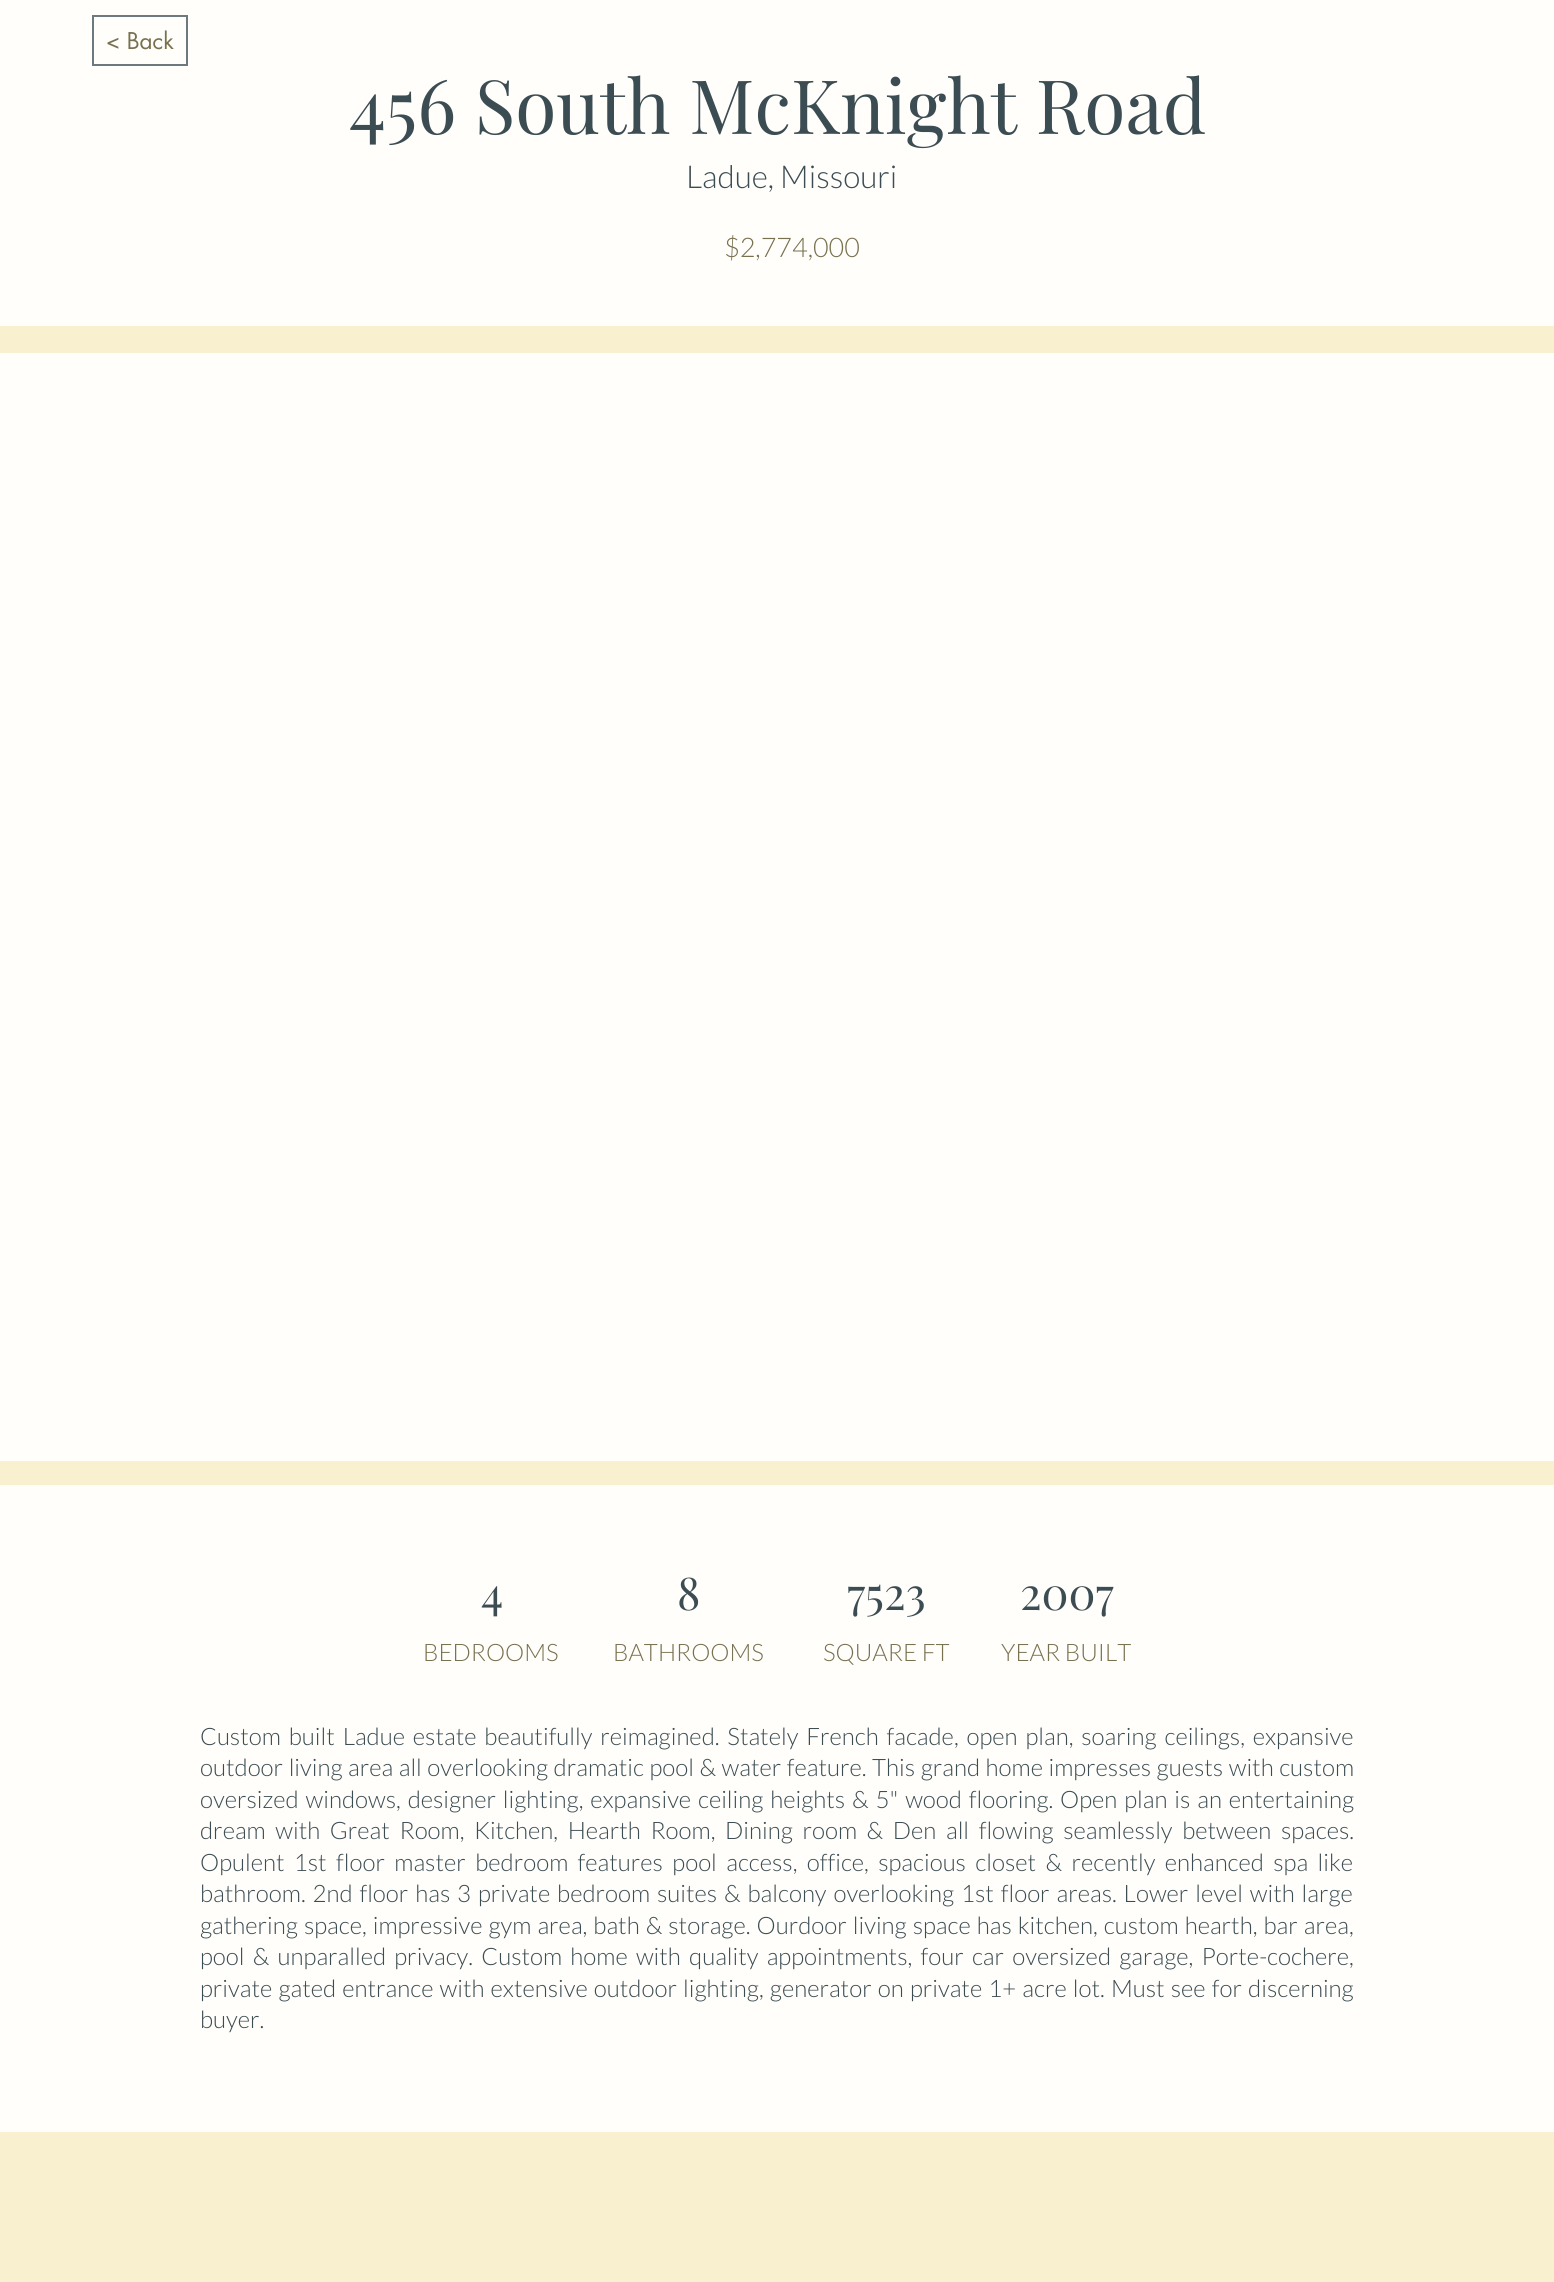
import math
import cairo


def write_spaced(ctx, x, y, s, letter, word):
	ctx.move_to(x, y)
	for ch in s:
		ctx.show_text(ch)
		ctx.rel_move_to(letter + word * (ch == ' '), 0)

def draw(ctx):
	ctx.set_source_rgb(0.969, 0.941, 0.808)
	ctx.paint()
	ctx.set_source_rgb(1, 0.996, 0.98)
	ctx.rectangle(0, 0, 1554, 326)
	ctx.fill()
	ctx.rectangle(93, 16, 94, 49)
	ctx.set_source_rgb(0.424, 0.475, 0.494)
	ctx.stroke()
	ctx.select_font_face('futura')
	ctx.set_font_size(22.5)
	ctx.set_source_rgb(0.471, 0.443, 0.314)
	ctx.move_to(106, 49)
	ctx.show_text('< Back')
	ctx.select_font_face('Playfair Display')
	ctx.set_font_size(75)
	ctx.set_source_rgb(0.231, 0.298, 0.325)
	ctx.move_to(349, 134)
	ctx.show_text('456 South McKnight Road')
	ctx.select_font_face('Lato Light')
	ctx.set_font_size(31.5)
	ctx.move_to(686, 188)
	ctx.show_text('Ladue, Missouri')
	ctx.set_font_size(27)
	ctx.set_source_rgb(0.471, 0.443, 0.314)
	ctx.move_to(724, 257)
	ctx.show_text('$2,774,000')
	ctx.set_source_rgb(1, 0.996, 0.98)
	ctx.rectangle(0, 353, 1554, 1108)
	ctx.fill()
	ctx.rectangle(0, 1485, 1554, 647)
	ctx.fill()
	ctx.select_font_face('Playfair Display')
	ctx.set_font_size(45)
	ctx.set_source_rgb(0.231, 0.298, 0.325)
	for x, y, s in [
		(481, 1610, '4'),
		(677, 1610, '8'),
		(847, 1610, '7523'),
		(1020, 1610, '2007'),
	]:
		ctx.move_to(x, y)
		ctx.show_text(s)
	ctx.select_font_face('Lato Light')
	ctx.set_font_size(24)
	ctx.set_source_rgb(0.471, 0.443, 0.314)
	for x, y, s in [
		(423, 1661, 'BEDROOMS'),
		(613, 1661, 'BATHROOMS'),
		(823, 1661, 'SQUARE FT'),
		(1001, 1661, 'YEAR BUILT'),
	]:
		ctx.move_to(x, y)
		ctx.show_text(s)
	ctx.set_source_rgb(0.231, 0.298, 0.325)
	write_spaced(ctx, 200, 1745, 'Custom built Ladue estate beautifully reimagined. Stately French facade, open plan, soaring ceilings, expansive', 0, 3.25)
	write_spaced(ctx, 200, 1776, 'outdoor living area all overlooking dramatic pool & water feature. This grand home impresses guests with custom', 0, 0.9)
	write_spaced(ctx, 200, 1808, 'oversized windows, designer lighting, expansive ceiling heights & 5" wood flooring. Open plan is an entertaining', 0, 2.25)
	write_spaced(ctx, 200, 1839, 'dream with Great Room, Kitchen, Hearth Room, Dining room & Den all flowing seamlessly between spaces.', 0, 5)
	write_spaced(ctx, 200, 1871, 'Opulent 1st floor master bedroom features pool access, office, spacious closet & recently enhanced spa like', 0, 4.75)
	write_spaced(ctx, 200, 1902, 'bathroom. 2nd floor has 3 private bedroom suites & balcony overlooking 1st floor areas. Lower level with large', 0, 2.25)
	write_spaced(ctx, 200, 1934, 'gathering space, impressive gym area, bath & storage. Ourdoor living space has kitchen, custom hearth, bar area,', 0, 1.4)
	write_spaced(ctx, 200, 1965, 'pool & unparalled privacy. Custom home with quality appointments, four car oversized garage, Porte-cochere,', 0, 3.6)
	write_spaced(ctx, 200, 1997, 'private gated entrance with extensive outdoor lighting, generator on private 1+ acre lot. Must see for discerning', 0, 1.5)
	ctx.move_to(200, 2028)
	ctx.show_text('buyer.')


surface = cairo.ImageSurface(cairo.FORMAT_RGB24, 1554, 2282)
ctx = cairo.Context(surface)
options = cairo.FontOptions()
options.set_hint_metrics(cairo.HINT_METRICS_OFF)
options.set_hint_style(cairo.HINT_STYLE_NONE)
ctx.set_font_options(options)
ctx.set_miter_limit(4)
draw(ctx)
surface.write_to_png('image.png')
